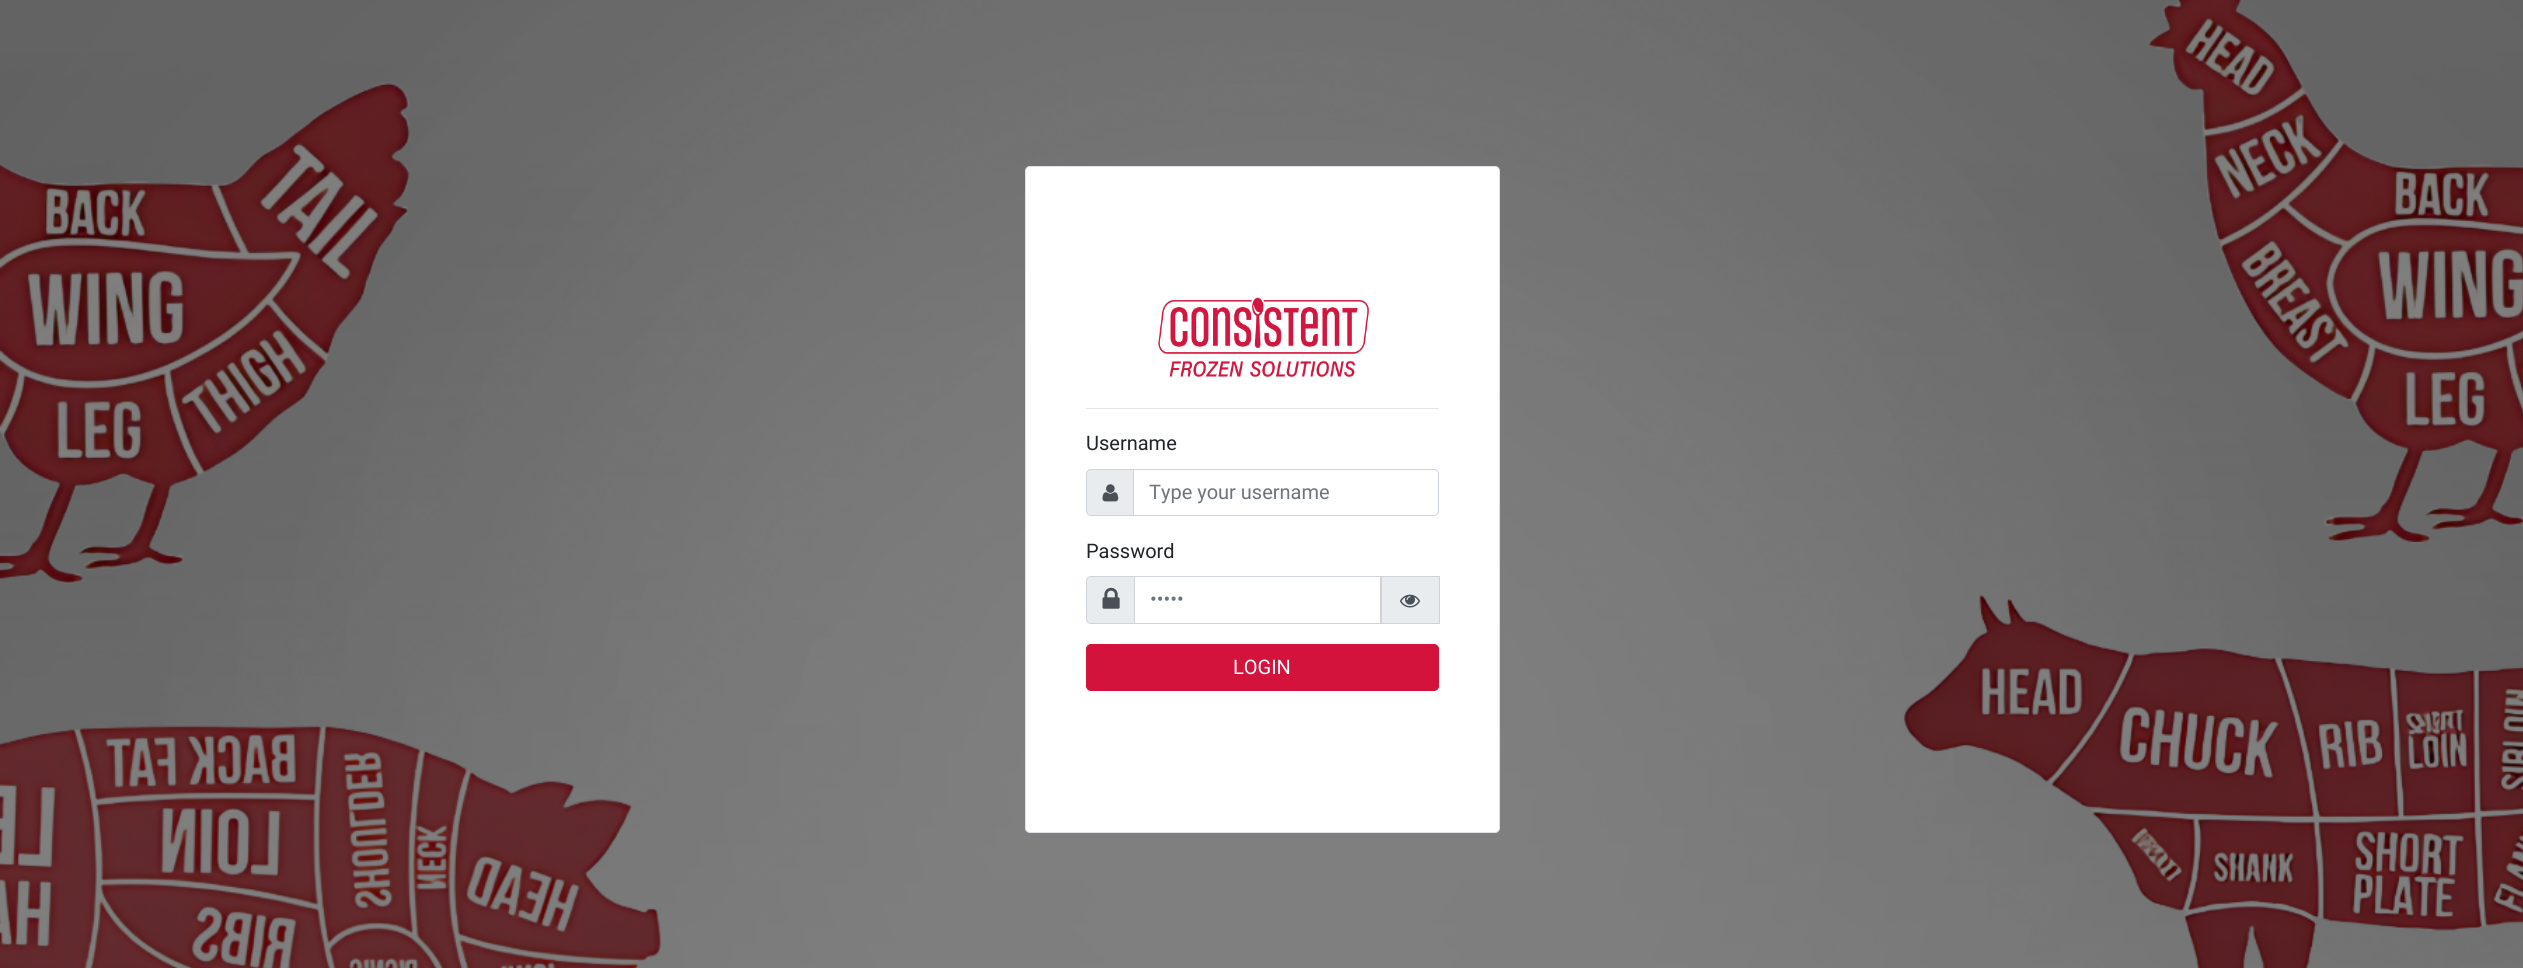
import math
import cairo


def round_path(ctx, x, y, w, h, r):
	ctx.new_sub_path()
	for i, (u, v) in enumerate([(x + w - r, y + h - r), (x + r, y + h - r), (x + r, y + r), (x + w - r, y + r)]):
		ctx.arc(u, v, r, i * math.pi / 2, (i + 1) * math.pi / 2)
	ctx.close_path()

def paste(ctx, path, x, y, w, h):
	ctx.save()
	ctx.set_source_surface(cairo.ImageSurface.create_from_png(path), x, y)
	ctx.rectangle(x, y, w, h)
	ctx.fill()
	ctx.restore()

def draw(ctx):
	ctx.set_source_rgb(1, 1, 1)
	ctx.paint()
	paste(ctx, 'media/1.png', 0, 0, 2523, 968)
	ctx.set_source_rgb(1, 1, 1)
	round_path(ctx, 1025.5, 166.5, 474, 666, 4.5)
	ctx.fill_preserve()
	ctx.set_source_rgb(0.871, 0.886, 0.902)
	ctx.set_line_width(1)
	ctx.stroke()
	paste(ctx, 'media/2.png', 1158, 297, 212, 81)
	ctx.set_source_rgb(0.902, 0.902, 0.902)
	ctx.rectangle(1086, 408, 353, 1)
	ctx.fill()
	ctx.select_font_face('Roboto')
	ctx.set_font_size(20)
	ctx.set_source_rgb(0.129, 0.145, 0.161)
	ctx.move_to(1086, 450)
	ctx.show_text('Username')
	ctx.set_source_rgb(0.914, 0.925, 0.937)
	ctx.new_path()
	ctx.move_to(1091, 469.5)
	ctx.line_to(1133.5, 469.5)
	ctx.line_to(1133.5, 515.5)
	ctx.line_to(1091, 515.5)
	ctx.curve_to(1088.5, 515.5, 1086.5, 513.5, 1086.5, 511)
	ctx.line_to(1086.5, 474)
	ctx.curve_to(1086.5, 471.5, 1088.5, 469.5, 1091, 469.5)
	ctx.close_path()
	ctx.fill_preserve()
	ctx.set_source_rgb(0.808, 0.831, 0.855)
	ctx.stroke()
	paste(ctx, 'media/3.png', 1102, 484, 17, 18)
	ctx.new_path()
	ctx.move_to(1133.5, 469.5)
	ctx.line_to(1434, 469.5)
	ctx.curve_to(1436.5, 469.5, 1438.5, 471.5, 1438.5, 474)
	ctx.line_to(1438.5, 511)
	ctx.curve_to(1438.5, 513.5, 1436.5, 515.5, 1434, 515.5)
	ctx.line_to(1133.5, 515.5)
	ctx.close_path()
	ctx.stroke()
	ctx.set_source_rgb(0.424, 0.459, 0.49)
	ctx.move_to(1149, 499)
	ctx.show_text('Type your username')
	ctx.set_source_rgb(0.129, 0.145, 0.161)
	ctx.move_to(1086, 558)
	ctx.show_text('Password')
	ctx.set_source_rgb(0.914, 0.925, 0.937)
	ctx.new_path()
	ctx.move_to(1091, 576.5)
	ctx.line_to(1134.5, 576.5)
	ctx.line_to(1134.5, 623.5)
	ctx.line_to(1091, 623.5)
	ctx.curve_to(1088.5, 623.5, 1086.5, 621.5, 1086.5, 619)
	ctx.line_to(1086.5, 581)
	ctx.curve_to(1086.5, 578.5, 1088.5, 576.5, 1091, 576.5)
	ctx.close_path()
	ctx.fill_preserve()
	ctx.set_source_rgb(0.808, 0.831, 0.855)
	ctx.stroke()
	paste(ctx, 'media/4.png', 1102, 587, 18, 22)
	ctx.rectangle(1134.5, 576.5, 246, 47)
	ctx.stroke()
	ctx.set_source_rgb(0.424, 0.459, 0.49)
	ctx.move_to(1150, 606)
	ctx.show_text('•••••')
	ctx.set_source_rgb(0.914, 0.925, 0.937)
	ctx.rectangle(1381.5, 576.5, 58, 47)
	ctx.fill_preserve()
	ctx.set_source_rgb(0.808, 0.831, 0.855)
	ctx.stroke()
	paste(ctx, 'media/5.png', 1400, 594, 20, 14)
	ctx.set_source_rgb(0.831, 0.078, 0.235)
	round_path(ctx, 1086.5, 644.5, 352, 46, 4.5)
	ctx.fill_preserve()
	ctx.stroke()
	ctx.set_source_rgb(1, 1, 1)
	ctx.move_to(1233, 674)
	ctx.show_text('LOGIN')


surface = cairo.ImageSurface(cairo.FORMAT_RGB24, 2523, 968)
ctx = cairo.Context(surface)
options = cairo.FontOptions()
options.set_hint_metrics(cairo.HINT_METRICS_OFF)
options.set_hint_style(cairo.HINT_STYLE_NONE)
ctx.set_font_options(options)
ctx.set_miter_limit(4)
draw(ctx)
surface.write_to_png('image.png')
